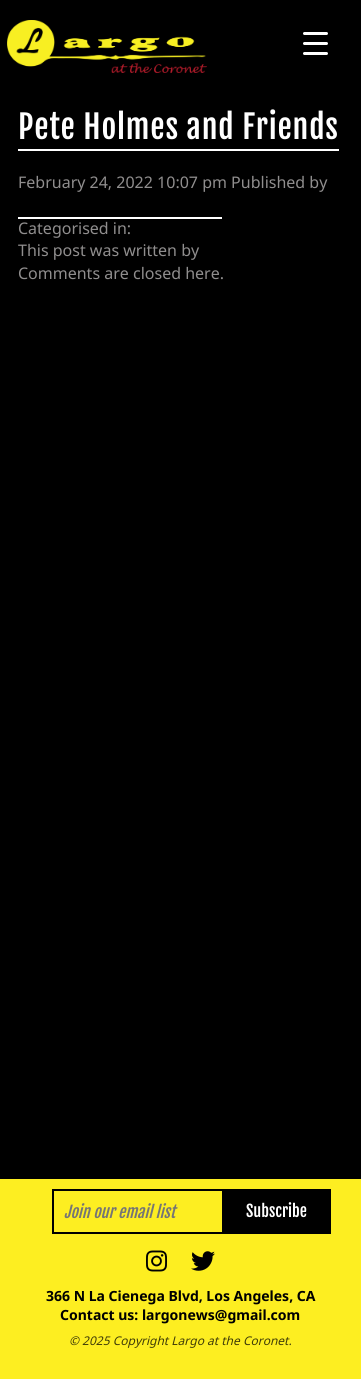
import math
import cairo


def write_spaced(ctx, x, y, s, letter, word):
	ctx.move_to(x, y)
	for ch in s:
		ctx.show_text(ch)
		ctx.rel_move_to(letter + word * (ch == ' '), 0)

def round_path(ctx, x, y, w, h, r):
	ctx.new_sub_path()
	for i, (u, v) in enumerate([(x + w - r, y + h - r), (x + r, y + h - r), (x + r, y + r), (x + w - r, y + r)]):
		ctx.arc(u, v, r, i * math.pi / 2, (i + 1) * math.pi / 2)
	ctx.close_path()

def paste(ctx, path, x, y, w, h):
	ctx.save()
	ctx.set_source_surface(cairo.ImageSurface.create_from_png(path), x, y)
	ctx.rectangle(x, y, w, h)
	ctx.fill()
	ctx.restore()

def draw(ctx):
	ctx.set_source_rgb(0, 0, 0)
	ctx.paint()
	ctx.set_source_rgb(1, 1, 1)
	round_path(ctx, 303, 42, 25, 3, 1.5)
	ctx.fill()
	round_path(ctx, 303, 32, 25, 3, 1.5)
	ctx.fill()
	round_path(ctx, 303, 52, 25, 3, 1.5)
	ctx.fill()
	paste(ctx, 'media/1.png', 7, 20, 200, 53)
	ctx.select_font_face('Fjalla One')
	ctx.set_font_size(32)
	write_spaced(ctx, 18, 139, 'Pete Holmes and Friends', 0.8, 0)
	ctx.rectangle(18, 149, 321, 2)
	ctx.fill()
	ctx.select_font_face('Noto Sans')
	ctx.set_font_size(16)
	ctx.set_source_rgb(0.565, 0.557, 0.557)
	ctx.move_to(18, 188)
	ctx.show_text('February 24, 2022 10:07 pm Published by')
	ctx.set_source_rgb(1, 1, 1)
	ctx.rectangle(18, 217, 204, 2)
	ctx.fill()
	ctx.set_source_rgb(0.565, 0.557, 0.557)
	for x, y, s in [
		(18, 234, 'Categorised in:'),
		(18, 256, 'This post was written by'),
		(18, 279, 'Comments are closed here.'),
	]:
		ctx.move_to(x, y)
		ctx.show_text(s)
	ctx.set_source_rgb(0.992, 0.933, 0.129)
	ctx.rectangle(0, 1179, 361, 200)
	ctx.fill()
	ctx.rectangle(53, 1190, 188, 43)
	ctx.set_source_rgb(0, 0, 0)
	ctx.stroke()
	ctx.select_font_face('Fjalla One', cairo.FONT_SLANT_ITALIC)
	ctx.set_source_rgb(0.459, 0.459, 0.459)
	ctx.move_to(64, 1218)
	ctx.show_text('Join our email list')
	ctx.set_source_rgb(0, 0, 0)
	ctx.rectangle(222, 1189, 109, 45)
	ctx.fill()
	ctx.select_font_face('Fjalla One')
	ctx.set_source_rgb(1, 1, 1)
	ctx.move_to(246, 1217)
	ctx.show_text('Subscribe')
	paste(ctx, 'media/2.png', 146, 1250, 21, 22)
	paste(ctx, 'media/3.png', 191, 1251, 24, 20)
	ctx.select_font_face('Noto Sans', cairo.FONT_SLANT_NORMAL, cairo.FONT_WEIGHT_BOLD)
	ctx.set_font_size(14)
	ctx.set_source_rgb(0, 0, 0)
	ctx.move_to(46, 1301)
	ctx.show_text('366 N La Cienega Blvd, Los Angeles, CA')
	ctx.move_to(60, 1320)
	ctx.show_text('Contact us: largonews@gmail.com')
	ctx.select_font_face('Noto Sans', cairo.FONT_SLANT_ITALIC)
	ctx.set_font_size(12)
	ctx.set_source_rgb(0.247, 0.235, 0.031)
	ctx.move_to(69, 1345)
	ctx.show_text('© 2025 Copyright Largo at the Coronet.')


surface = cairo.ImageSurface(cairo.FORMAT_RGB24, 361, 1379)
ctx = cairo.Context(surface)
options = cairo.FontOptions()
options.set_hint_metrics(cairo.HINT_METRICS_OFF)
options.set_hint_style(cairo.HINT_STYLE_NONE)
ctx.set_font_options(options)
ctx.set_miter_limit(4)
draw(ctx)
surface.write_to_png('image.png')
